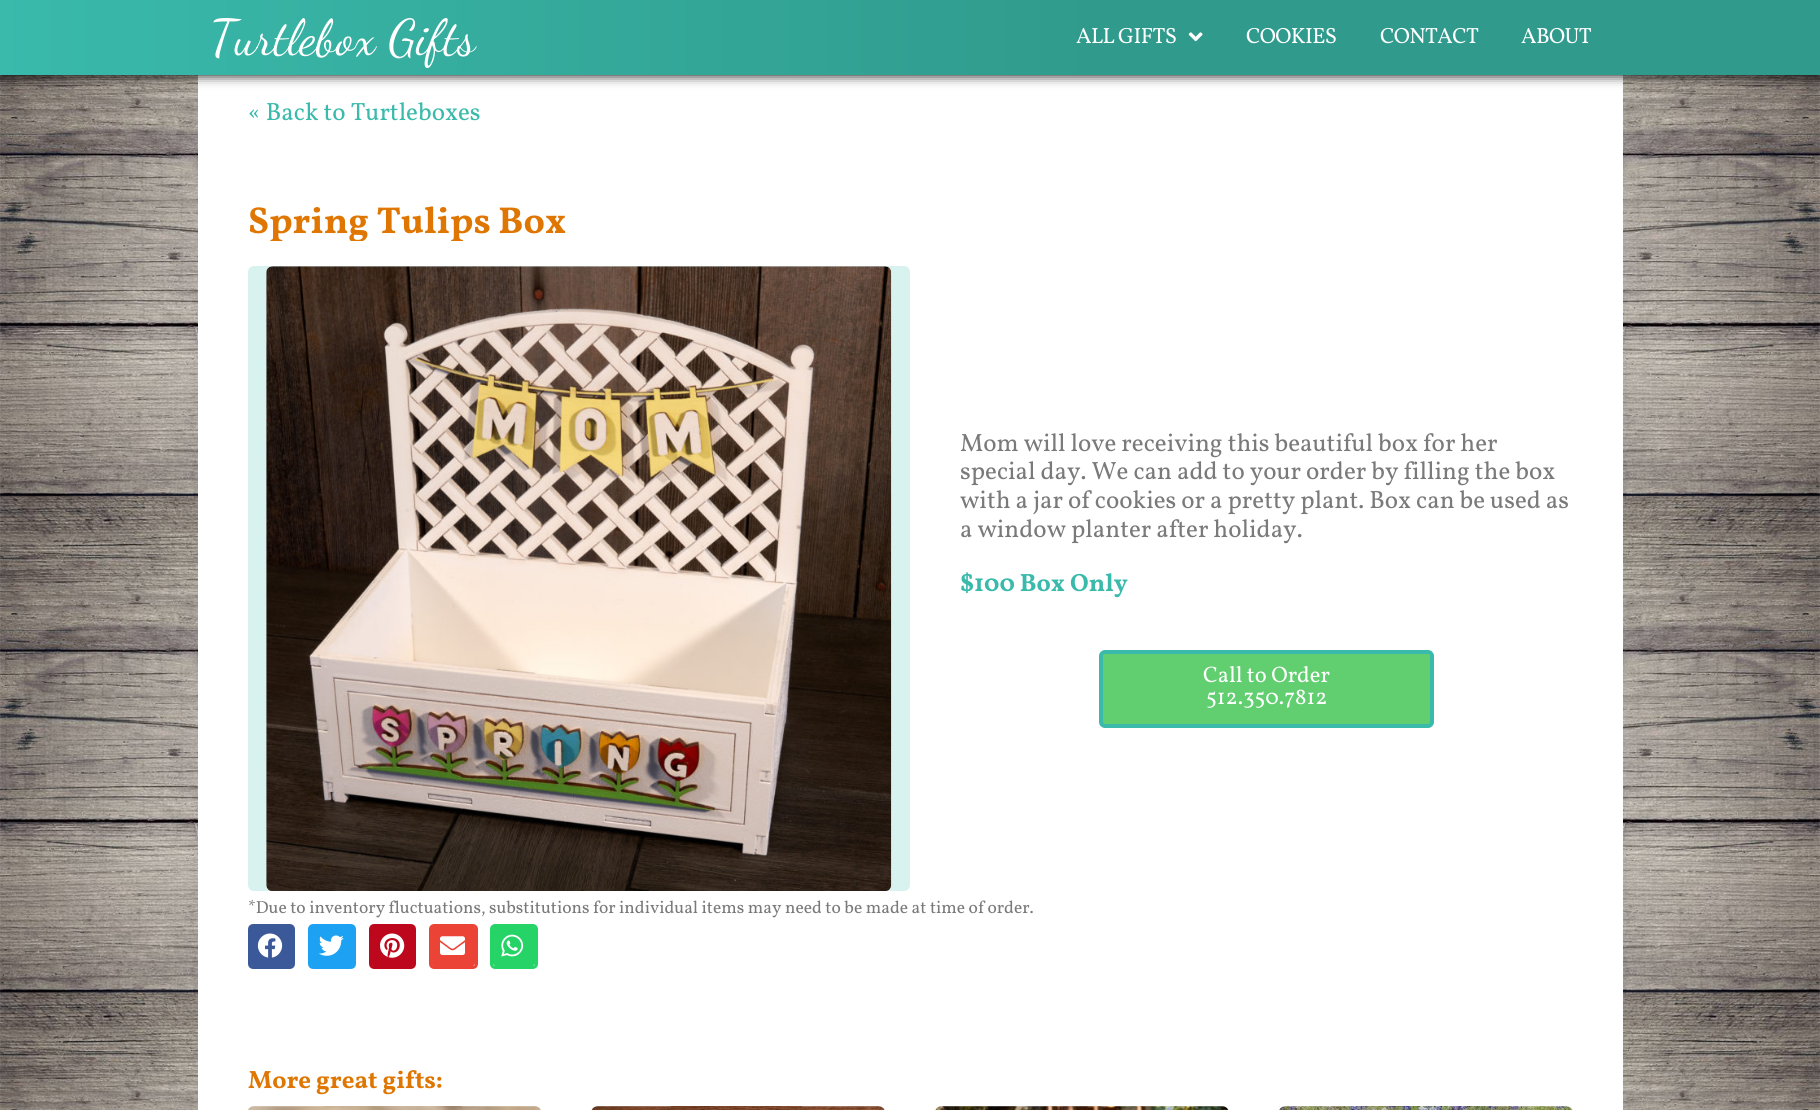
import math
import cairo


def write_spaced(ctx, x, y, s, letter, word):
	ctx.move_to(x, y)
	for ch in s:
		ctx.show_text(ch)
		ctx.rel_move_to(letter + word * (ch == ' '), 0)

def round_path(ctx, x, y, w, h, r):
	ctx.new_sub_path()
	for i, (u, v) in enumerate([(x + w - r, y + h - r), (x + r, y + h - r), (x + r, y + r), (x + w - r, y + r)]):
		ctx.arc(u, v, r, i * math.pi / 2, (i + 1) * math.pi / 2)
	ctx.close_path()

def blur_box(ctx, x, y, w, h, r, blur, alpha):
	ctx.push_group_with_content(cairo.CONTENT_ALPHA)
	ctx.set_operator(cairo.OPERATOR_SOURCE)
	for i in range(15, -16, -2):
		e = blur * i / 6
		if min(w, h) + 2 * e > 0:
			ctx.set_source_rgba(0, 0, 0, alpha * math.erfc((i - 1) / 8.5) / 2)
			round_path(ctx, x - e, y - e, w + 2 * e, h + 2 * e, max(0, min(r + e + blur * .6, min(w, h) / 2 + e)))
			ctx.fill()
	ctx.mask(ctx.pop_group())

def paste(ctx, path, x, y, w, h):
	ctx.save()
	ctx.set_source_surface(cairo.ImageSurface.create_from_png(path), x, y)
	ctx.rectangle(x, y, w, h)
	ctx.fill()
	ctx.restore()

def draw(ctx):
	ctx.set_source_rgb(1, 1, 1)
	ctx.paint()
	paste(ctx, 'media/1.png', 0, 75, 1820, 1035)
	ctx.set_source_rgb(1, 1, 1)
	ctx.rectangle(198, 75, 1425, 166)
	ctx.fill()
	ctx.set_source_rgb(0, 0, 0)
	blur_box(ctx, 0, 0, 1820, 75, 0, 6, 1)
	gradient = cairo.LinearGradient(0, 38, 1820, 37)
	gradient.add_color_stop_rgba(0, 0.224, 0.729, 0.671, 1)
	gradient.add_color_stop_rgba(0.6, 0.188, 0.608, 0.553, 1)
	ctx.set_source(gradient)
	ctx.rectangle(0, 0, 1820, 75)
	ctx.fill()
	ctx.select_font_face('Dancing Script')
	ctx.set_font_size(50)
	ctx.set_source_rgb(1, 1, 1)
	ctx.move_to(210, 54)
	ctx.show_text('Turtlebox Gifts')
	ctx.select_font_face('Vollkorn')
	ctx.set_font_size(22)
	write_spaced(ctx, 1076, 43, 'ALL GIFTS', -0.6, 0)
	paste(ctx, 'media/2.png', 1188, 32, 15, 10)
	for x, y, s in [
		(1246, 43, 'COOKIES'),
		(1380, 43, 'CONTACT'),
		(1521, 43, 'ABOUT'),
	]:
		write_spaced(ctx, x, y, s, -0.6, 0)
	ctx.set_font_size(25)
	ctx.set_source_rgb(0.224, 0.729, 0.671)
	ctx.move_to(248, 120)
	ctx.show_text('« Back to Turtleboxes')
	ctx.select_font_face('Vollkorn', cairo.FONT_SLANT_NORMAL, cairo.FONT_WEIGHT_BOLD)
	ctx.set_font_size(37.5)
	ctx.set_source_rgb(0.875, 0.463, 0.004)
	ctx.move_to(248, 233)
	ctx.show_text('Spring Tulips Box')
	ctx.set_source_rgb(1, 1, 1)
	ctx.rectangle(198, 241, 1425, 869)
	ctx.fill()
	ctx.set_source_rgb(0.847, 0.949, 0.937)
	round_path(ctx, 248, 266, 662, 625, 6)
	ctx.fill()
	paste(ctx, 'media/3.png', 266, 266, 626, 625)
	ctx.select_font_face('Vollkorn')
	ctx.set_font_size(25)
	ctx.set_source_rgb(0.478, 0.478, 0.478)
	for x, y, s in [
		(960, 451, 'Mom will love receiving this beautiful box for her'),
		(960, 479, 'special day. We can add to your order by filling the box'),
		(960, 508, 'with a jar of cookies or a pretty plant. Box can be used as'),
		(960, 537, 'a window planter after holiday.'),
	]:
		ctx.move_to(x, y)
		ctx.show_text(s)
	ctx.select_font_face('Vollkorn', cairo.FONT_SLANT_NORMAL, cairo.FONT_WEIGHT_BOLD)
	ctx.set_source_rgb(0.224, 0.729, 0.671)
	ctx.move_to(960, 591)
	ctx.show_text('$100 Box Only')
	ctx.set_source_rgb(0.38, 0.808, 0.439)
	round_path(ctx, 1101, 652, 331, 74, 4)
	ctx.fill_preserve()
	ctx.set_source_rgb(0.224, 0.729, 0.671)
	ctx.set_line_width(4)
	ctx.stroke()
	ctx.select_font_face('Vollkorn')
	ctx.set_font_size(22.5)
	ctx.set_source_rgb(1, 1, 1)
	ctx.move_to(1203, 682)
	ctx.show_text('Call to Order')
	ctx.move_to(1206, 704)
	ctx.show_text('512.350.7812')
	ctx.set_font_size(17.5)
	ctx.set_source_rgb(0.478, 0.478, 0.478)
	ctx.move_to(248, 913)
	ctx.show_text('*Due to inventory fluctuations, substitutions for individual items may need to be made at time of order.')
	round_path(ctx, 249.5, 925.5, 44, 42, 3.5)
	ctx.set_source_rgb(0.231, 0.349, 0.596)
	ctx.set_line_width(3)
	ctx.stroke()
	round_path(ctx, 250, 926, 43, 40, 2.5)
	ctx.fill()
	paste(ctx, 'media/4.png', 257, 933, 26, 25)
	round_path(ctx, 309.5, 925.5, 45, 42, 3.5)
	ctx.set_source_rgb(0.114, 0.631, 0.949)
	ctx.stroke()
	round_path(ctx, 310, 926, 44, 40, 2.5)
	ctx.fill()
	paste(ctx, 'media/5.png', 318, 935, 26, 21)
	round_path(ctx, 370.5, 925.5, 44, 42, 3.5)
	ctx.set_source_rgb(0.741, 0.031, 0.11)
	ctx.stroke()
	round_path(ctx, 371, 926, 43, 40, 2.5)
	ctx.fill()
	paste(ctx, 'media/6.png', 380, 933, 25, 25)
	round_path(ctx, 430.5, 925.5, 46, 42, 3.5)
	ctx.set_source_rgb(0.918, 0.263, 0.208)
	ctx.stroke()
	round_path(ctx, 431, 926, 44, 40, 2.5)
	ctx.fill()
	paste(ctx, 'media/7.png', 440, 936, 25, 19)
	round_path(ctx, 491.5, 925.5, 45, 42, 3.5)
	ctx.set_source_rgb(0.145, 0.827, 0.4)
	ctx.stroke()
	round_path(ctx, 493, 926, 42, 40, 2.5)
	ctx.fill()
	paste(ctx, 'media/8.png', 501, 934, 23, 23)
	ctx.select_font_face('Vollkorn', cairo.FONT_SLANT_NORMAL, cairo.FONT_WEIGHT_BOLD)
	ctx.set_font_size(25)
	ctx.set_source_rgb(0.875, 0.463, 0.004)
	ctx.move_to(248, 1088)
	ctx.show_text('More great gifts:')
	ctx.set_source_rgb(0.902, 0.902, 0.902)
	round_path(ctx, 248, 1106, 293, 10, 6)
	ctx.fill()
	paste(ctx, 'media/9.png', 248, 1106, 293, 4)
	round_path(ctx, 591, 1106, 294, 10, 6)
	ctx.fill()
	paste(ctx, 'media/10.png', 591, 1106, 294, 4)
	round_path(ctx, 935, 1106, 294, 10, 6)
	ctx.fill()
	paste(ctx, 'media/11.png', 935, 1106, 294, 4)
	round_path(ctx, 1279, 1106, 294, 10, 6)
	ctx.fill()
	paste(ctx, 'media/12.png', 1279, 1106, 293, 4)


surface = cairo.ImageSurface(cairo.FORMAT_RGB24, 1820, 1110)
ctx = cairo.Context(surface)
options = cairo.FontOptions()
options.set_hint_metrics(cairo.HINT_METRICS_OFF)
options.set_hint_style(cairo.HINT_STYLE_NONE)
ctx.set_font_options(options)
ctx.set_miter_limit(4)
draw(ctx)
surface.write_to_png('image.png')
